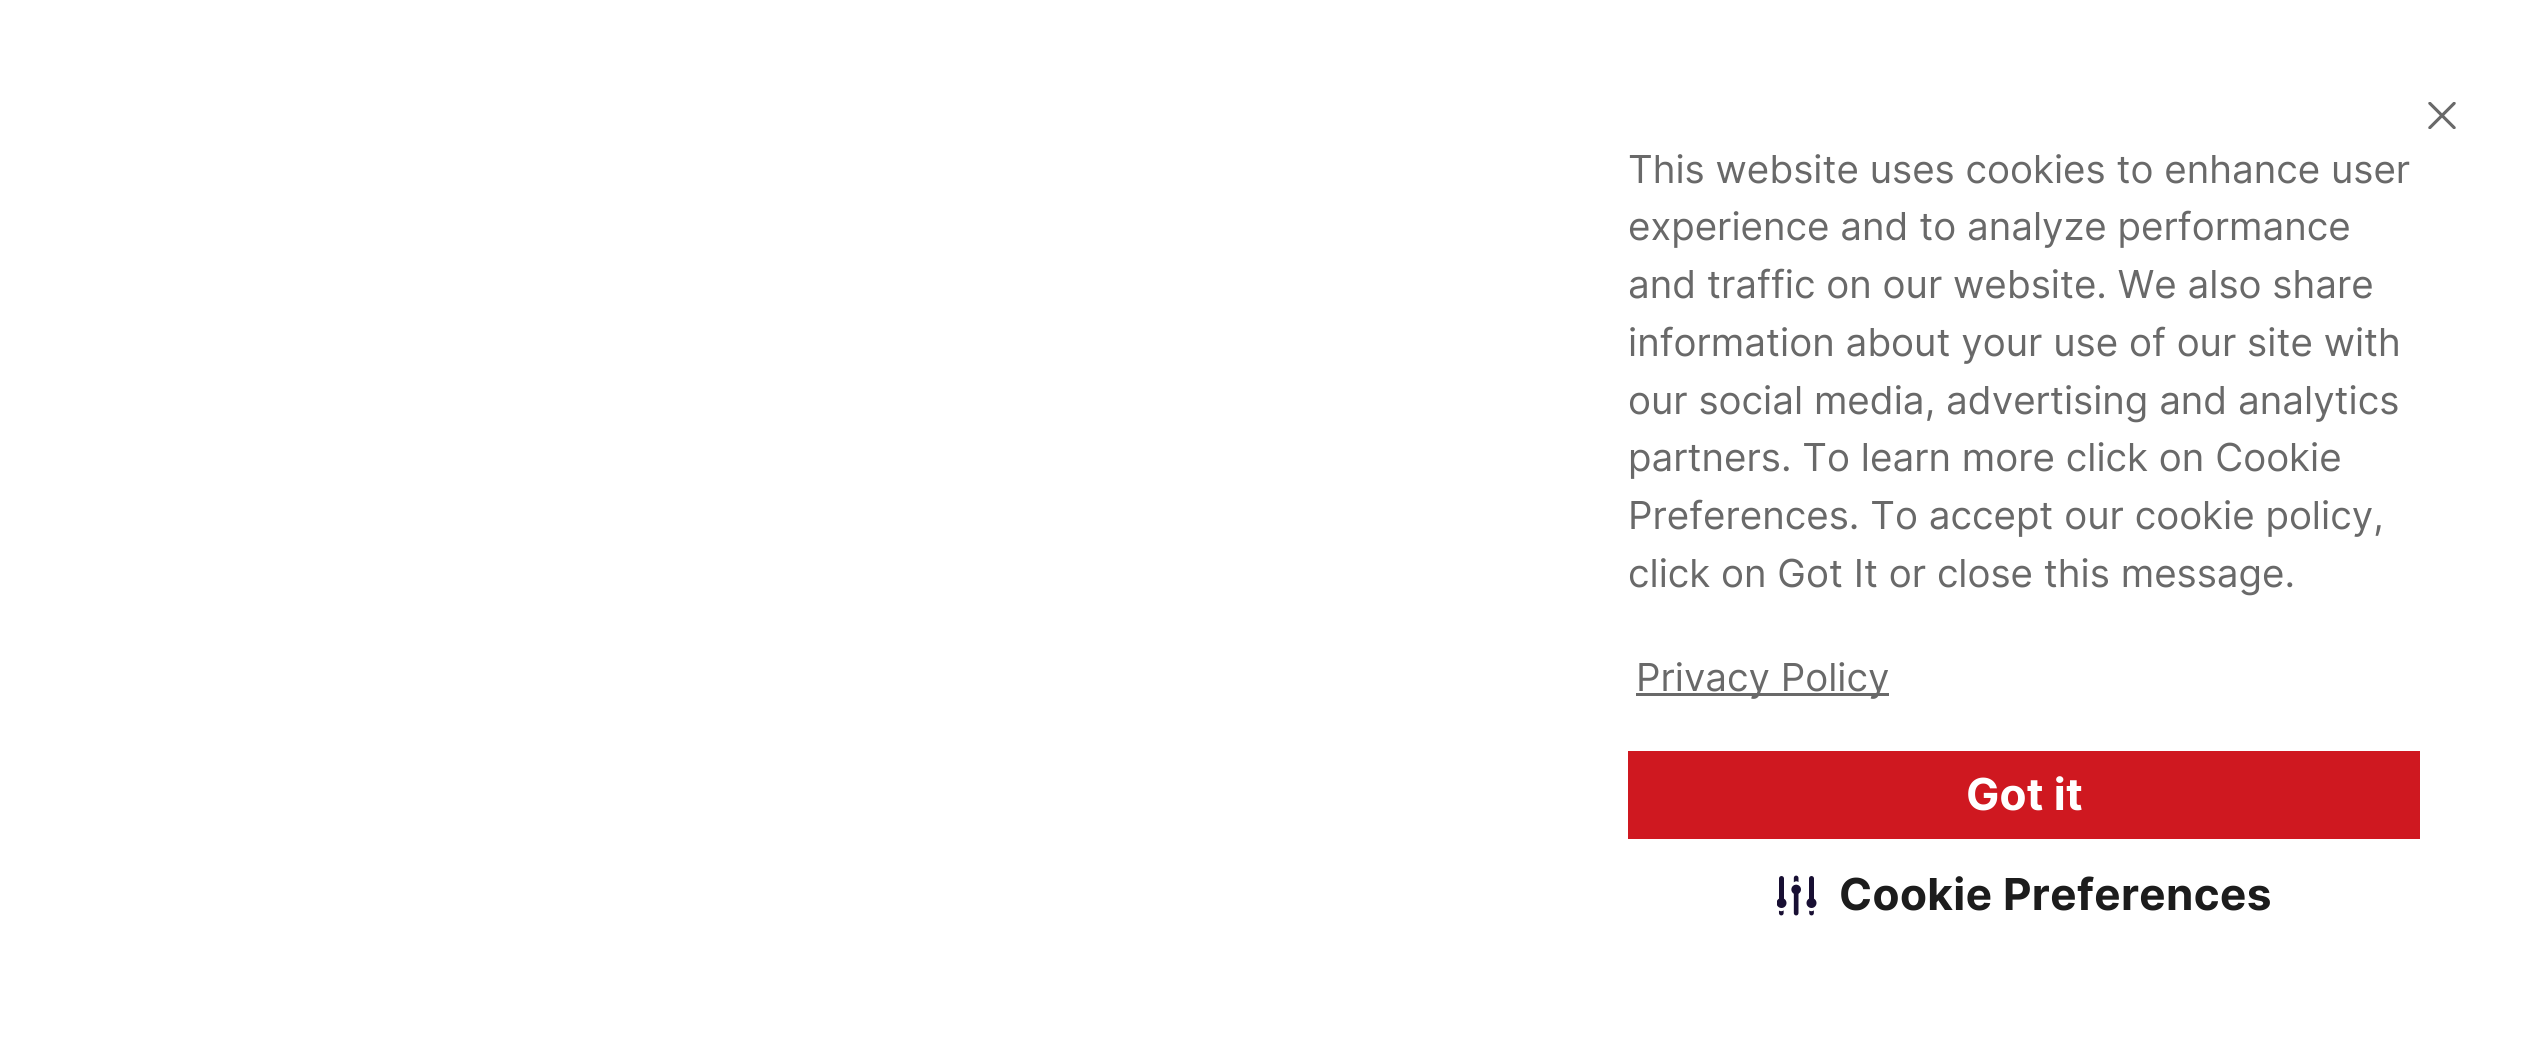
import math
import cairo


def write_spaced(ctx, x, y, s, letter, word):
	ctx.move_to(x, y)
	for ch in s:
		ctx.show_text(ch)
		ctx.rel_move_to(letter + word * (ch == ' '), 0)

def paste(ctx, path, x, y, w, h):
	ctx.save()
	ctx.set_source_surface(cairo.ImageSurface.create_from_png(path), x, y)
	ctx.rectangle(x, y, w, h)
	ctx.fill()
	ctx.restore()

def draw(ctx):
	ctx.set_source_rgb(1, 1, 1)
	ctx.paint()
	ctx.select_font_face('Inter')
	ctx.set_font_size(38.5)
	ctx.set_source_rgb(0.412, 0.412, 0.412)
	for x, y, s in [
		(1628, 183, 'This website uses cookies to enhance user'),
		(1628, 240, 'experience and to analyze performance'),
		(1628, 298, 'and traffic on our website. We also share'),
		(1628, 356, 'information about your use of our site with'),
		(1628, 414, 'our social media, advertising and analytics'),
		(1628, 471, 'partners. To learn more click on Cookie'),
		(1628, 529, 'Preferences. To accept our cookie policy,'),
		(1628, 587, 'click on Got It or close this message.'),
	]:
		ctx.move_to(x, y)
		ctx.show_text(s)
	ctx.rectangle(1636, 693, 253, 3)
	ctx.fill()
	ctx.move_to(1636, 691)
	ctx.show_text('Privacy Policy')
	paste(ctx, 'media/1.png', 2428, 102, 28, 27)
	ctx.set_source_rgb(0.812, 0.094, 0.125)
	ctx.rectangle(1628, 751, 792, 88)
	ctx.fill()
	ctx.select_font_face('Inter', cairo.FONT_SLANT_NORMAL, cairo.FONT_WEIGHT_BOLD)
	ctx.set_font_size(44)
	ctx.set_source_rgb(1, 1, 1)
	ctx.move_to(1966, 810)
	ctx.show_text('Got it')
	paste(ctx, 'media/2.png', 1777, 875, 40, 41)
	ctx.set_source_rgb(0.11, 0.11, 0.11)
	write_spaced(ctx, 1839, 910, 'Cookie Preferences', 0.4, 0)


surface = cairo.ImageSurface(cairo.FORMAT_RGB24, 2523, 1041)
ctx = cairo.Context(surface)
options = cairo.FontOptions()
options.set_hint_metrics(cairo.HINT_METRICS_OFF)
options.set_hint_style(cairo.HINT_STYLE_NONE)
ctx.set_font_options(options)
ctx.set_miter_limit(4)
draw(ctx)
surface.write_to_png('image.png')
